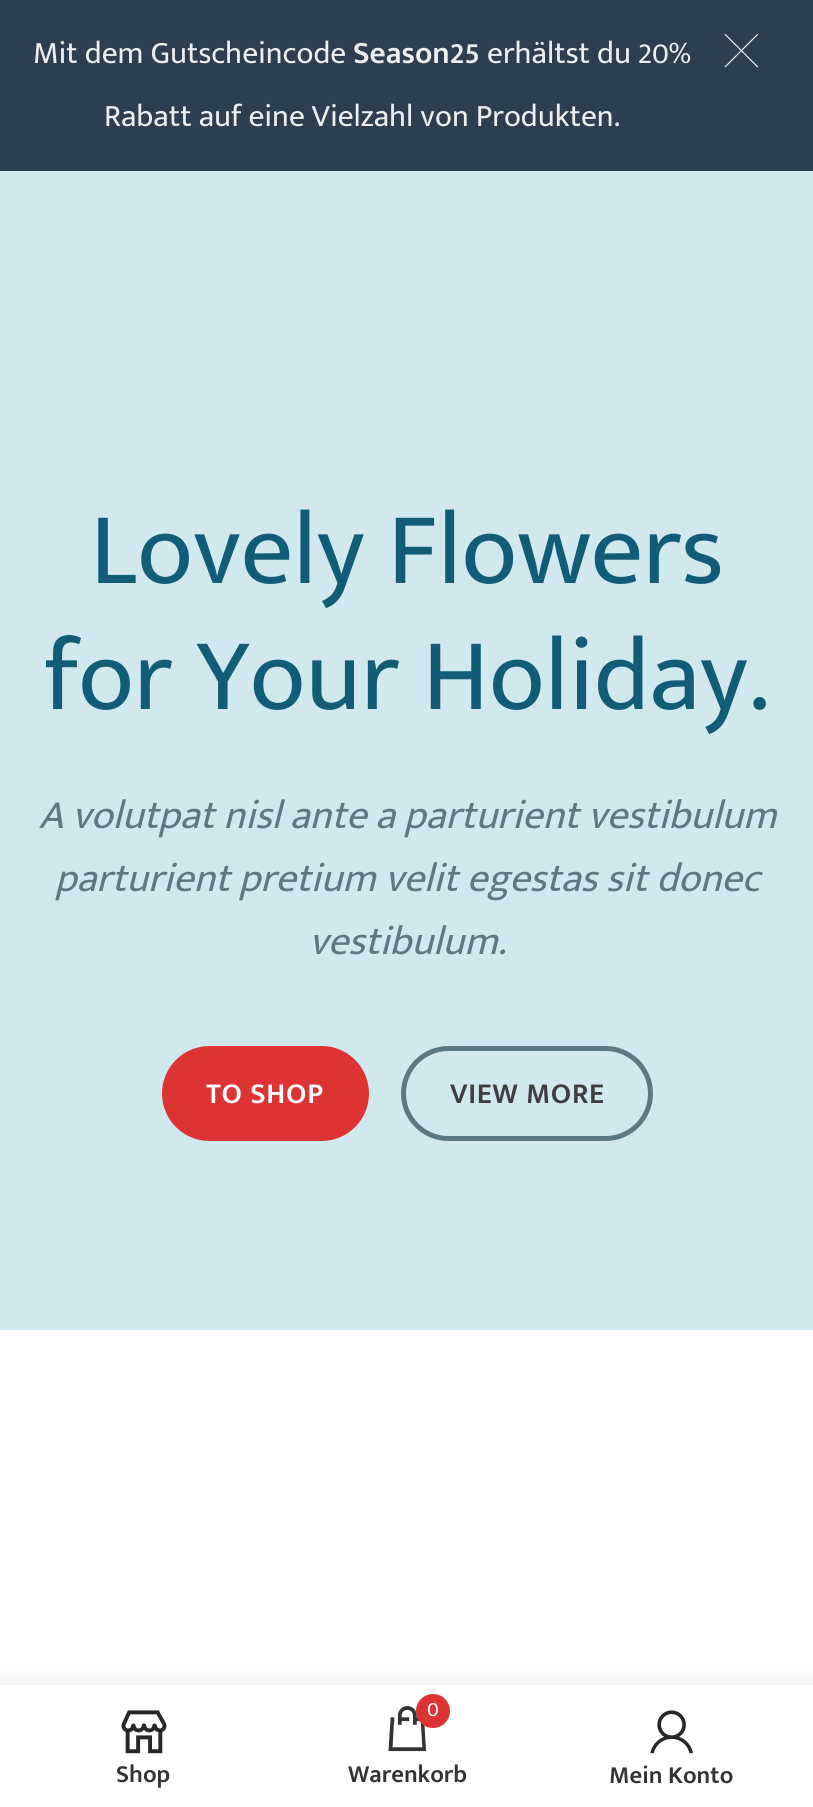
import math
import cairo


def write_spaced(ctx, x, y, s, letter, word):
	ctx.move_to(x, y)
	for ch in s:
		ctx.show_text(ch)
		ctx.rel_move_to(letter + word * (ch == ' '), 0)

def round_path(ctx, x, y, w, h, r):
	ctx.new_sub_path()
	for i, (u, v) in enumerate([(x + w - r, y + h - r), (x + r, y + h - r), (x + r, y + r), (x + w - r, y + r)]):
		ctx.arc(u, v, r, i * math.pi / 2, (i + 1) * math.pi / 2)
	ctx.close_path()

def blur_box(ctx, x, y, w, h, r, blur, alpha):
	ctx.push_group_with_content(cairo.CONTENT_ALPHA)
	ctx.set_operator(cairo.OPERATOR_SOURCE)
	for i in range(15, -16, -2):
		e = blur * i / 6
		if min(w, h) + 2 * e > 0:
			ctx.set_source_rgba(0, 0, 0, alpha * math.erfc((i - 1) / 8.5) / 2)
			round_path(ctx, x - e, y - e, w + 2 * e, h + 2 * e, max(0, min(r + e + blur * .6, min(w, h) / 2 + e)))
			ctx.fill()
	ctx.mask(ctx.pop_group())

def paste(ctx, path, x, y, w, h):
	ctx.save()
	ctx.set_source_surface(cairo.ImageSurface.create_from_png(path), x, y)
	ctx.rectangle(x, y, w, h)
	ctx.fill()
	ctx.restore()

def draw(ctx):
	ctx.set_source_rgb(1, 1, 1)
	ctx.paint()
	ctx.set_source_rgb(0.176, 0.243, 0.314)
	ctx.rectangle(0, 0, 813, 171)
	ctx.fill()
	ctx.select_font_face('Mukta Mahee')
	ctx.set_font_size(31.5)
	ctx.set_source_rgb(0.925, 0.937, 0.945)
	ctx.move_to(33, 63)
	ctx.show_text('Mit dem Gutscheincode')
	ctx.select_font_face('Mukta Mahee SemiBold')
	ctx.move_to(353, 63)
	ctx.show_text('Season25')
	ctx.select_font_face('Mukta Mahee')
	ctx.move_to(487, 63)
	ctx.show_text('erhältst du 20%')
	ctx.move_to(104, 126)
	ctx.show_text('Rabatt auf eine Vielzahl von Produkten.')
	paste(ctx, 'media/1.png', 724, 33, 35, 35)
	ctx.set_source_rgb(0.82, 0.91, 0.933)
	ctx.rectangle(0, 171, 813, 1159)
	ctx.fill()
	ctx.set_font_size(103.5)
	ctx.set_source_rgb(0.071, 0.361, 0.467)
	ctx.move_to(90, 583)
	ctx.show_text('Lovely Flowers')
	ctx.move_to(44, 709)
	ctx.show_text('for Your Holiday.')
	ctx.select_font_face('Mukta Mahee', cairo.FONT_SLANT_ITALIC)
	ctx.set_font_size(40.5)
	ctx.set_source_rgb(0.361, 0.471, 0.51)
	for x, y, s in [
		(39, 828, 'A volutpat nisl ante a parturient vestibulum'),
		(55, 891, 'parturient pretium velit egestas sit donec'),
		(309, 954, 'vestibulum.'),
	]:
		ctx.move_to(x, y)
		ctx.show_text(s)
	ctx.set_source_rgb(0.867, 0.2, 0.2)
	round_path(ctx, 162, 1046, 207, 95, 47.5)
	ctx.fill()
	ctx.select_font_face('Mukta Mahee SemiBold')
	ctx.set_font_size(29.25)
	ctx.set_source_rgb(1, 1, 1)
	write_spaced(ctx, 206, 1103, 'TO SHOP', 0.75, 0)
	round_path(ctx, 403.5, 1048.5, 247, 90, 45)
	ctx.set_source_rgb(0.361, 0.471, 0.51)
	ctx.set_line_width(5)
	ctx.stroke()
	ctx.set_source_rgb(0.243, 0.243, 0.243)
	write_spaced(ctx, 450, 1103, 'VIEW MORE', 0.75, 0)
	ctx.set_source_rgb(0, 0, 0)
	blur_box(ctx, 0, 1685, 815, 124, 0, 10, 0.12)
	ctx.set_source_rgb(1, 1, 1)
	ctx.rectangle(0, 1685, 813, 122)
	ctx.fill()
	paste(ctx, 'media/2.png', 121, 1710, 46, 44)
	ctx.set_font_size(24.75)
	ctx.set_source_rgb(0.2, 0.2, 0.2)
	ctx.move_to(116, 1782)
	ctx.show_text('Shop')
	paste(ctx, 'media/3.png', 388, 1706, 39, 46)
	ctx.set_source_rgb(0.867, 0.2, 0.2)
	ctx.arc(433, 1711, 17, 0, 2 * math.pi)
	ctx.fill()
	ctx.select_font_face('Mukta Mahee')
	ctx.set_font_size(22)
	ctx.set_source_rgb(1, 1, 1)
	ctx.move_to(427, 1716)
	ctx.show_text('0')
	ctx.select_font_face('Mukta Mahee SemiBold')
	ctx.set_font_size(24.75)
	ctx.set_source_rgb(0.2, 0.2, 0.2)
	ctx.move_to(348, 1782)
	ctx.show_text('Warenkorb')
	paste(ctx, 'media/4.png', 650, 1710, 43, 44)
	ctx.move_to(609, 1783)
	ctx.show_text('Mein Konto')


surface = cairo.ImageSurface(cairo.FORMAT_RGB24, 813, 1807)
ctx = cairo.Context(surface)
options = cairo.FontOptions()
options.set_hint_metrics(cairo.HINT_METRICS_OFF)
options.set_hint_style(cairo.HINT_STYLE_NONE)
ctx.set_font_options(options)
ctx.set_miter_limit(4)
draw(ctx)
surface.write_to_png('image.png')
